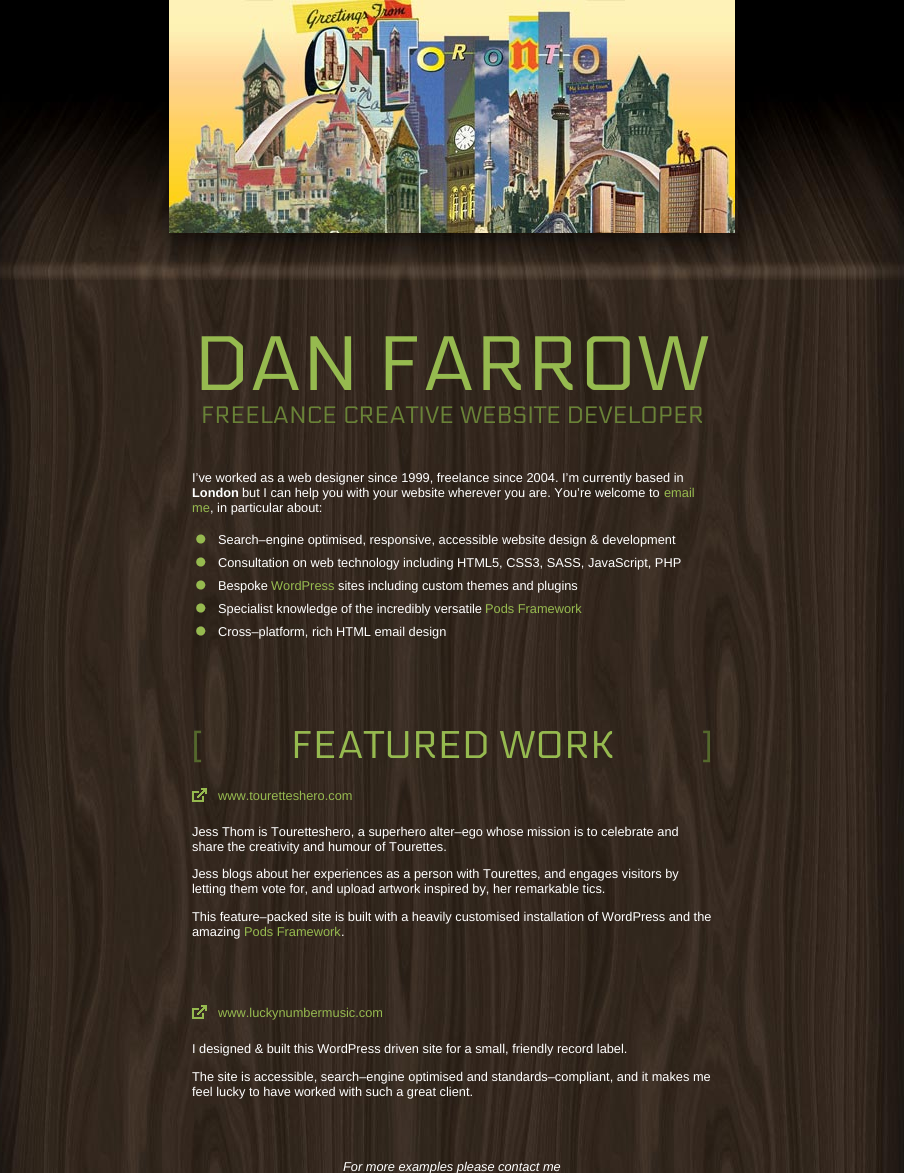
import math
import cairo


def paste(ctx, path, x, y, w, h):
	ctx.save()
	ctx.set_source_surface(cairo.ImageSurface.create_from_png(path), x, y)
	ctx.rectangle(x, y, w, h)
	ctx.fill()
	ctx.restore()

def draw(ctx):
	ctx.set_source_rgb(1, 1, 1)
	ctx.paint()
	paste(ctx, 'media/1.png', 0, 280, 904, 893)
	ctx.set_source_rgb(0, 0, 0)
	ctx.rectangle(0, 0, 904, 86)
	ctx.fill()
	paste(ctx, 'media/2.png', 0, 86, 904, 194)
	paste(ctx, 'media/3.png', 169, 0, 566, 233)
	ctx.select_font_face('Electrolize')
	ctx.set_font_size(76.75)
	ctx.set_source_rgb(0.588, 0.729, 0.31)
	ctx.move_to(194, 390)
	ctx.show_text('DAN FARROW')
	ctx.set_font_size(23.7)
	ctx.set_source_rgb(0.412, 0.51, 0.216)
	ctx.move_to(201, 423)
	ctx.show_text('FREELANCE CREATIVE WEBSITE DEVELOPER')
	ctx.select_font_face('Liberation Sans')
	ctx.set_font_size(12.8)
	ctx.set_source_rgb(1, 1, 1)
	ctx.move_to(192, 482)
	ctx.show_text('I’ve worked as a web designer since 1999, freelance since 2004. I’m currently based in')
	ctx.select_font_face('Liberation Sans', cairo.FONT_SLANT_NORMAL, cairo.FONT_WEIGHT_BOLD)
	ctx.move_to(192, 497)
	ctx.show_text('London')
	ctx.select_font_face('Liberation Sans')
	ctx.move_to(242, 497)
	ctx.show_text('but I can help you with your website wherever you are. You’re welcome to')
	ctx.set_source_rgb(0.588, 0.729, 0.31)
	ctx.move_to(664, 497)
	ctx.show_text('email')
	ctx.move_to(192, 512)
	ctx.show_text('me')
	ctx.set_source_rgb(1, 1, 1)
	ctx.move_to(210, 512)
	ctx.show_text(', in particular about:')
	paste(ctx, 'media/4.png', 196, 534, 10, 10)
	ctx.move_to(218, 544)
	ctx.show_text('Search–engine optimised, responsive, accessible website design & development')
	paste(ctx, 'media/5.png', 196, 557, 10, 10)
	ctx.move_to(218, 567)
	ctx.show_text('Consultation on web technology including HTML5, CSS3, SASS, JavaScript, PHP')
	paste(ctx, 'media/6.png', 196, 580, 10, 10)
	ctx.move_to(218, 590)
	ctx.show_text('Bespoke')
	ctx.set_source_rgb(0.588, 0.729, 0.31)
	ctx.move_to(271, 590)
	ctx.show_text('WordPress')
	ctx.set_source_rgb(1, 1, 1)
	ctx.move_to(338, 590)
	ctx.show_text('sites including custom themes and plugins')
	paste(ctx, 'media/7.png', 196, 603, 10, 10)
	ctx.move_to(218, 613)
	ctx.show_text('Specialist knowledge of the incredibly versatile')
	ctx.set_source_rgb(0.588, 0.729, 0.31)
	ctx.move_to(485, 613)
	ctx.show_text('Pods Framework')
	paste(ctx, 'media/8.png', 196, 626, 10, 10)
	ctx.set_source_rgb(1, 1, 1)
	ctx.move_to(218, 636)
	ctx.show_text('Cross–platform, rich HTML email design')
	ctx.select_font_face('Electrolize')
	ctx.set_font_size(38.5)
	ctx.set_source_rgb(0.329, 0.408, 0.173)
	ctx.move_to(192, 758)
	ctx.show_text('[')
	ctx.set_source_rgb(0.588, 0.729, 0.31)
	ctx.move_to(291, 758)
	ctx.show_text('FEATURED WORK')
	ctx.set_source_rgb(0.329, 0.408, 0.173)
	ctx.move_to(701, 758)
	ctx.show_text(']')
	paste(ctx, 'media/9.png', 192, 788, 15, 14)
	ctx.select_font_face('Liberation Sans')
	ctx.set_font_size(12.8)
	ctx.set_source_rgb(0.588, 0.729, 0.31)
	ctx.move_to(218, 800)
	ctx.show_text('www.touretteshero.com')
	ctx.set_source_rgb(1, 1, 1)
	for x, y, s in [
		(192, 836, 'Jess Thom is Touretteshero, a superhero alter–ego whose mission is to celebrate and'),
		(192, 851, 'share the creativity and humour of Tourettes.'),
		(192, 878, 'Jess blogs about her experiences as a person with Tourettes, and engages visitors by'),
		(192, 893, 'letting them vote for, and upload artwork inspired by, her remarkable tics.'),
		(192, 921, 'This feature–packed site is built with a heavily customised installation of WordPress and the'),
		(192, 936, 'amazing'),
	]:
		ctx.move_to(x, y)
		ctx.show_text(s)
	ctx.set_source_rgb(0.588, 0.729, 0.31)
	ctx.move_to(244, 936)
	ctx.show_text('Pods Framework')
	ctx.set_source_rgb(1, 1, 1)
	ctx.move_to(341, 936)
	ctx.show_text('.')
	paste(ctx, 'media/10.png', 192, 1005, 15, 14)
	ctx.set_source_rgb(0.588, 0.729, 0.31)
	ctx.move_to(218, 1017)
	ctx.show_text('www.luckynumbermusic.com')
	ctx.set_source_rgb(1, 1, 1)
	for x, y, s in [
		(192, 1053, 'I designed & built this WordPress driven site for a small, friendly record label.'),
		(192, 1081, 'The site is accessible, search–engine optimised and standards–compliant, and it makes me'),
		(192, 1096, 'feel lucky to have worked with such a great client.'),
	]:
		ctx.move_to(x, y)
		ctx.show_text(s)
	ctx.select_font_face('Liberation Sans', cairo.FONT_SLANT_ITALIC)
	ctx.move_to(343, 1171)
	ctx.show_text('For more examples please contact me')


surface = cairo.ImageSurface(cairo.FORMAT_RGB24, 904, 1173)
ctx = cairo.Context(surface)
options = cairo.FontOptions()
options.set_hint_metrics(cairo.HINT_METRICS_OFF)
options.set_hint_style(cairo.HINT_STYLE_NONE)
ctx.set_font_options(options)
ctx.set_miter_limit(4)
draw(ctx)
surface.write_to_png('image.png')
